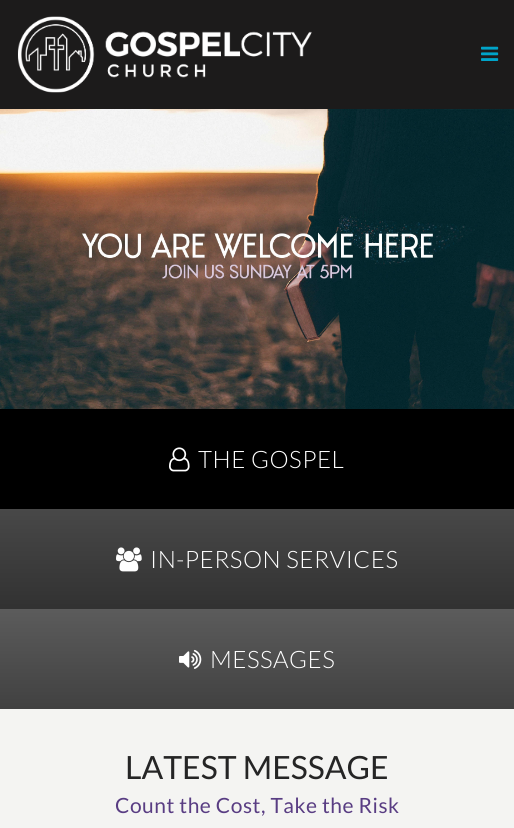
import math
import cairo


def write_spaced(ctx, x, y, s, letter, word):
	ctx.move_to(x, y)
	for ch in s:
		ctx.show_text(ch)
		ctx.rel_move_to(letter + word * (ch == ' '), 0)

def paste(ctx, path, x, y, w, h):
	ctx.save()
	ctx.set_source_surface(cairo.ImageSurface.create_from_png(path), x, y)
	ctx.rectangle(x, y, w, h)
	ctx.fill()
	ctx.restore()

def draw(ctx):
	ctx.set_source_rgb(0.957, 0.957, 0.949)
	ctx.paint()
	ctx.set_source_rgb(0.11, 0.106, 0.106)
	ctx.rectangle(0, 0, 514, 109)
	ctx.fill()
	paste(ctx, 'media/1.png', 17, 16, 295, 77)
	paste(ctx, 'media/2.png', 481, 46, 18, 15)
	paste(ctx, 'media/3.png', 0, 109, 514, 300)
	ctx.set_source_rgb(0, 0, 0)
	ctx.rectangle(0, 409, 514, 100)
	ctx.fill()
	paste(ctx, 'media/4.png', 169, 447, 21, 25)
	ctx.select_font_face('Lato Light')
	ctx.set_font_size(24)
	ctx.set_source_rgb(1, 1, 1)
	write_spaced(ctx, 198, 468, 'THE GOSPEL', 0.5, 0)
	gradient = cairo.LinearGradient(257, 0, 257, 828)
	gradient.add_color_stop_rgba(0, 0.733, 0.733, 0.733, 1)
	gradient.add_color_stop_rgba(1, 0, 0, 0, 1)
	ctx.set_source(gradient)
	ctx.rectangle(0, 509, 514, 100)
	ctx.fill()
	paste(ctx, 'media/5.png', 116, 547, 26, 25)
	ctx.set_source_rgb(1, 1, 1)
	write_spaced(ctx, 150, 568, 'IN-PERSON SERVICES', 0.5, 0)
	gradient = cairo.LinearGradient(257, 0, 257, 828)
	gradient.add_color_stop_rgba(0, 1, 1, 1, 1)
	gradient.add_color_stop_rgba(1, 0.129, 0.129, 0.129, 1)
	ctx.set_source(gradient)
	ctx.rectangle(0, 609, 514, 100)
	ctx.fill()
	paste(ctx, 'media/6.png', 179, 649, 23, 20)
	ctx.set_source_rgb(1, 1, 1)
	write_spaced(ctx, 210, 668, 'MESSAGES', 0.5, 0)
	ctx.select_font_face('Lato')
	ctx.set_font_size(32)
	ctx.set_source_rgb(0.145, 0.145, 0.145)
	ctx.move_to(125, 779)
	ctx.show_text('LATEST MESSAGE')
	ctx.set_font_size(21)
	ctx.set_source_rgb(0.349, 0.239, 0.514)
	write_spaced(ctx, 115, 813, 'Count the Cost, Take the Risk', 0.5, 0)


surface = cairo.ImageSurface(cairo.FORMAT_RGB24, 514, 828)
ctx = cairo.Context(surface)
options = cairo.FontOptions()
options.set_hint_metrics(cairo.HINT_METRICS_OFF)
options.set_hint_style(cairo.HINT_STYLE_NONE)
ctx.set_font_options(options)
ctx.set_miter_limit(4)
draw(ctx)
surface.write_to_png('image.png')
